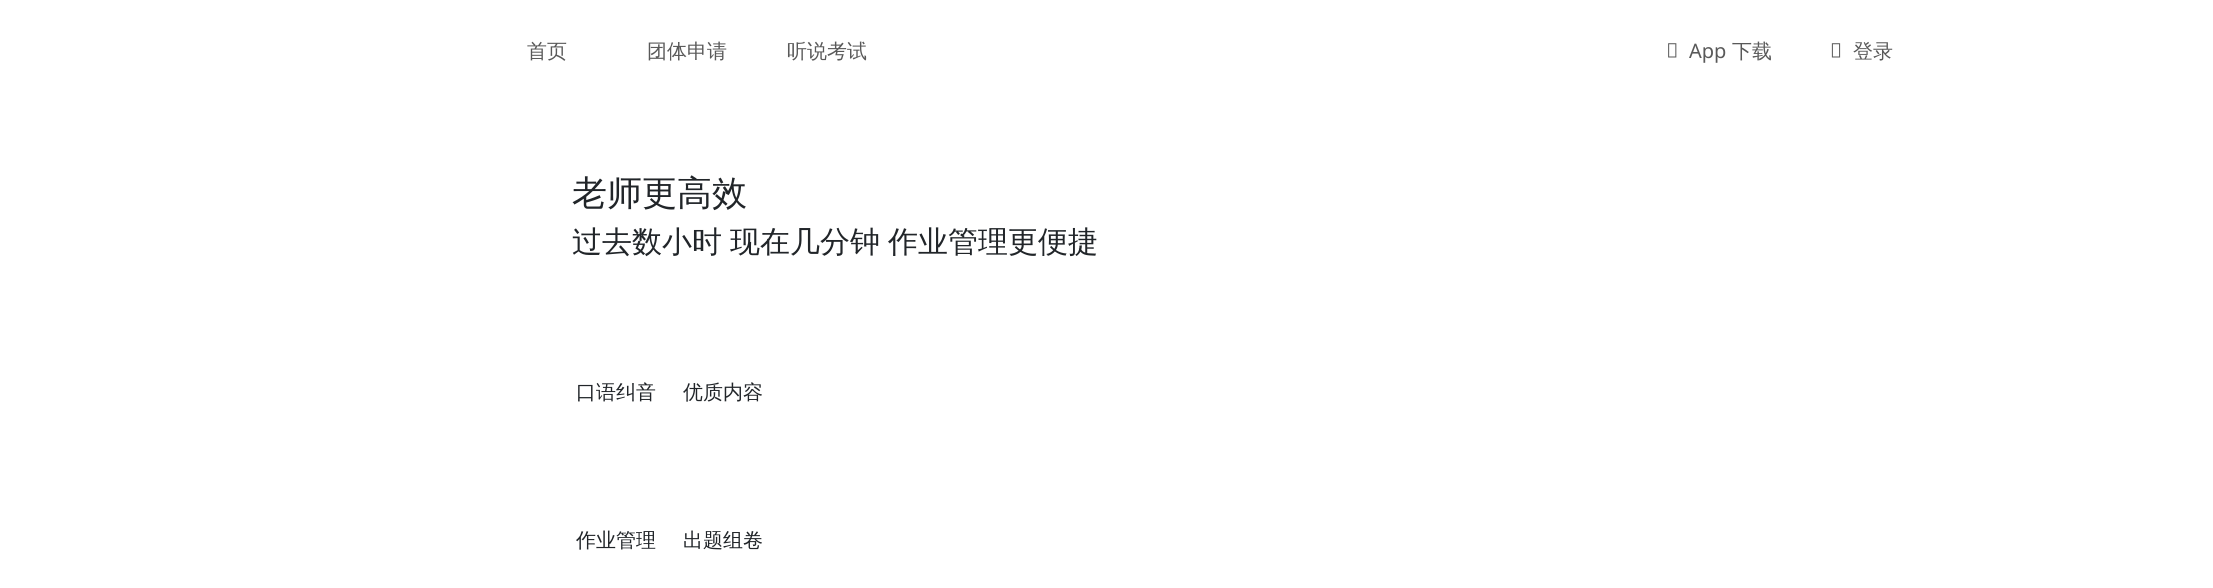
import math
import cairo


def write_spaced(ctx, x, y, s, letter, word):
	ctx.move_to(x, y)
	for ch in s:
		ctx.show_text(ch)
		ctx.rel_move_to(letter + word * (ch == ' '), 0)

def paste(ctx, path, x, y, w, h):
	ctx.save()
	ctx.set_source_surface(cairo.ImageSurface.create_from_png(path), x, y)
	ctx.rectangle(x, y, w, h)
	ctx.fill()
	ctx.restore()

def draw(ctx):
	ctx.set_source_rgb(1, 1, 1)
	ctx.paint()
	ctx.select_font_face('WenQuanYi Zen Hei Medium')
	ctx.set_font_size(20)
	ctx.set_source_rgb(0.349, 0.349, 0.349)
	for x, y, s in [
		(527, 58, '首页'),
		(647, 58, '团体申请'),
		(787, 58, '听说考试'),
	]:
		ctx.move_to(x, y)
		ctx.show_text(s)
	paste(ctx, 'media/1.png', 1668, 43, 9, 15)
	ctx.select_font_face('Noto Sans')
	ctx.move_to(1689, 58)
	ctx.show_text('App')
	ctx.select_font_face('WenQuanYi Zen Hei Medium')
	ctx.move_to(1732, 58)
	ctx.show_text('下载')
	paste(ctx, 'media/2.png', 1831, 43, 10, 15)
	ctx.move_to(1853, 58)
	ctx.show_text('登录')
	ctx.set_font_size(35)
	ctx.set_source_rgb(0.129, 0.145, 0.161)
	ctx.move_to(572, 205)
	ctx.show_text('老师更高效')
	ctx.set_font_size(30)
	write_spaced(ctx, 572, 252, '过去数小时 现在几分钟 作业管理更便捷', 0, -1)
	ctx.set_font_size(20)
	for x, y, s in [
		(576, 399, '口语纠音'),
		(683, 399, '优质内容'),
		(576, 547, '作业管理'),
		(683, 547, '出题组卷'),
	]:
		ctx.move_to(x, y)
		ctx.show_text(s)


surface = cairo.ImageSurface(cairo.FORMAT_RGB24, 2213, 588)
ctx = cairo.Context(surface)
options = cairo.FontOptions()
options.set_hint_metrics(cairo.HINT_METRICS_OFF)
options.set_hint_style(cairo.HINT_STYLE_NONE)
ctx.set_font_options(options)
ctx.set_miter_limit(4)
draw(ctx)
surface.write_to_png('image.png')
